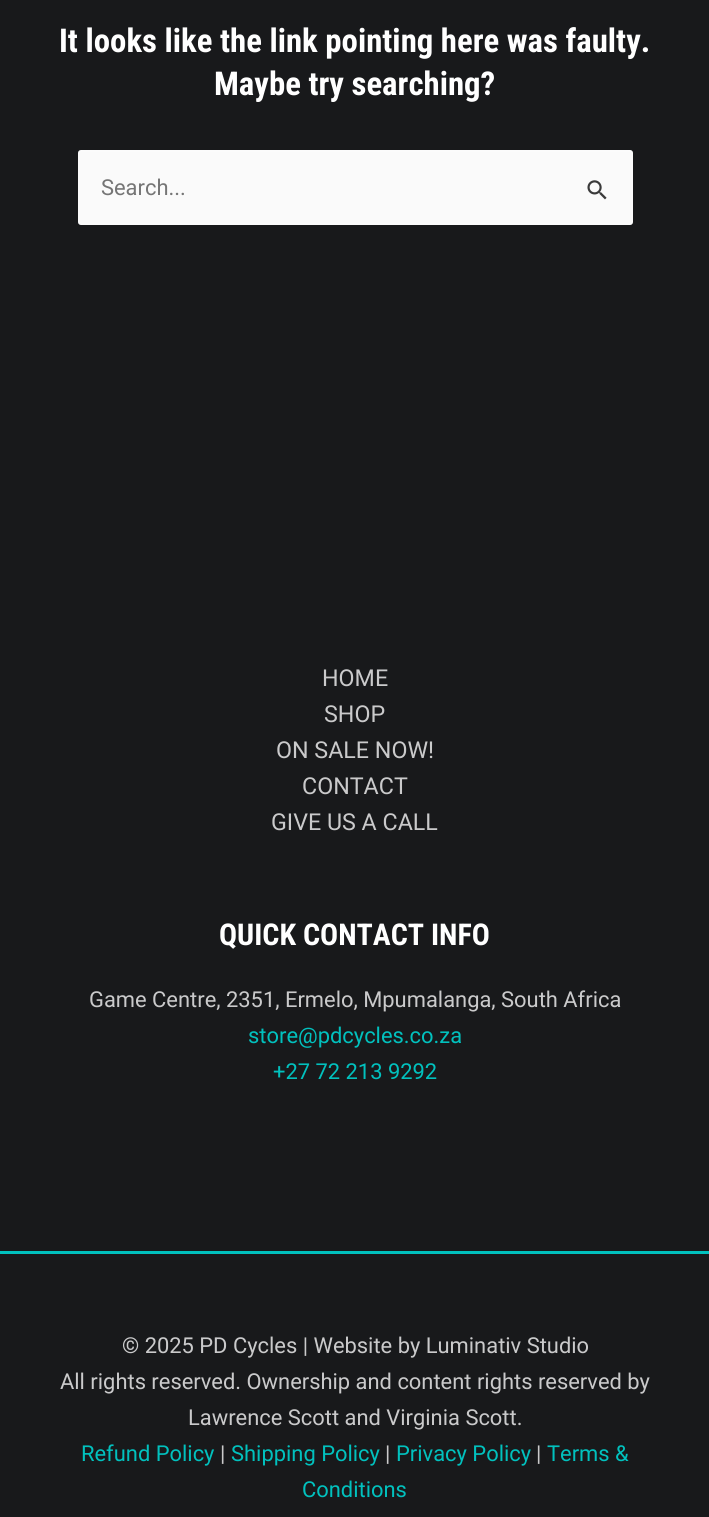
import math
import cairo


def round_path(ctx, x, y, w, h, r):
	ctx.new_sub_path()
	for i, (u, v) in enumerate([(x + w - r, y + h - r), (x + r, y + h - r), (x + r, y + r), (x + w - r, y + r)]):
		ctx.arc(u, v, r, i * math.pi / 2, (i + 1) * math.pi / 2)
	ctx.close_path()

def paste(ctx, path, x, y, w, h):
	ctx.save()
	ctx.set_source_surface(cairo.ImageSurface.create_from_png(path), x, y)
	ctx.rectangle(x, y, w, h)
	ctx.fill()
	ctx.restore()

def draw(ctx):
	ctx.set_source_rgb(0.094, 0.098, 0.106)
	ctx.paint()
	ctx.select_font_face('Roboto Condensed', cairo.FONT_SLANT_NORMAL, cairo.FONT_WEIGHT_BOLD)
	ctx.set_font_size(32.8)
	ctx.set_source_rgb(1, 1, 1)
	ctx.move_to(59, 52)
	ctx.show_text('It looks like the link pointing here was faulty.')
	ctx.move_to(214, 95)
	ctx.show_text('Maybe try searching?')
	ctx.set_source_rgb(0.98, 0.98, 0.98)
	round_path(ctx, 78, 150, 555, 75, 3)
	ctx.fill()
	round_path(ctx, 79, 151, 553, 73, 2)
	ctx.set_source_rgba(1, 1, 1, 0.24)
	ctx.stroke()
	ctx.select_font_face('Roboto')
	ctx.set_font_size(21.9)
	ctx.set_source_rgb(0.459, 0.459, 0.459)
	ctx.move_to(101, 195)
	ctx.show_text('Search...')
	paste(ctx, 'media/1.png', 587, 180, 20, 20)
	ctx.set_font_size(23.25)
	ctx.set_source_rgb(0.792, 0.792, 0.796)
	for x, y, s in [
		(322, 686, 'HOME'),
		(324, 722, 'SHOP'),
		(276, 758, 'ON SALE NOW!'),
		(302, 794, 'CONTACT'),
		(271, 830, 'GIVE US A CALL'),
	]:
		ctx.move_to(x, y)
		ctx.show_text(s)
	ctx.select_font_face('Roboto Condensed', cairo.FONT_SLANT_NORMAL, cairo.FONT_WEIGHT_BOLD)
	ctx.set_font_size(30)
	ctx.set_source_rgb(1, 1, 1)
	ctx.move_to(219, 945)
	ctx.show_text('QUICK CONTACT INFO')
	ctx.select_font_face('Roboto')
	ctx.set_font_size(21.9)
	ctx.set_source_rgb(0.792, 0.792, 0.796)
	ctx.move_to(89, 1007)
	ctx.show_text('Game Centre, 2351, Ermelo, Mpumalanga, South Africa')
	ctx.set_source_rgb(0.004, 0.757, 0.745)
	ctx.move_to(248, 1043)
	ctx.show_text('store@pdcycles.co.za')
	ctx.move_to(273, 1079)
	ctx.show_text('+27 72 213 9292')
	ctx.rectangle(0, 1251, 709, 3)
	ctx.fill()
	ctx.set_source_rgb(0.792, 0.792, 0.796)
	for x, y, s in [
		(122, 1353, '© 2025 PD Cycles | Website by Luminativ Studio'),
		(60, 1389, 'All rights reserved. Ownership and content rights reserved by'),
		(188, 1425, 'Lawrence Scott and Virginia Scott.'),
	]:
		ctx.move_to(x, y)
		ctx.show_text(s)
	ctx.set_source_rgb(0.004, 0.757, 0.745)
	ctx.move_to(81, 1461)
	ctx.show_text('Refund Policy')
	ctx.set_source_rgb(0.792, 0.792, 0.796)
	ctx.move_to(220, 1461)
	ctx.show_text('|')
	ctx.set_source_rgb(0.004, 0.757, 0.745)
	ctx.move_to(231, 1461)
	ctx.show_text('Shipping Policy')
	ctx.set_source_rgb(0.792, 0.792, 0.796)
	ctx.move_to(385, 1461)
	ctx.show_text('|')
	ctx.set_source_rgb(0.004, 0.757, 0.745)
	ctx.move_to(396, 1461)
	ctx.show_text('Privacy Policy')
	ctx.set_source_rgb(0.792, 0.792, 0.796)
	ctx.move_to(536, 1461)
	ctx.show_text('|')
	ctx.set_source_rgb(0.004, 0.757, 0.745)
	ctx.move_to(547, 1461)
	ctx.show_text('Terms &')
	ctx.move_to(302, 1497)
	ctx.show_text('Conditions')


surface = cairo.ImageSurface(cairo.FORMAT_RGB24, 709, 1517)
ctx = cairo.Context(surface)
options = cairo.FontOptions()
options.set_hint_metrics(cairo.HINT_METRICS_OFF)
options.set_hint_style(cairo.HINT_STYLE_NONE)
ctx.set_font_options(options)
ctx.set_miter_limit(4)
draw(ctx)
surface.write_to_png('image.png')
